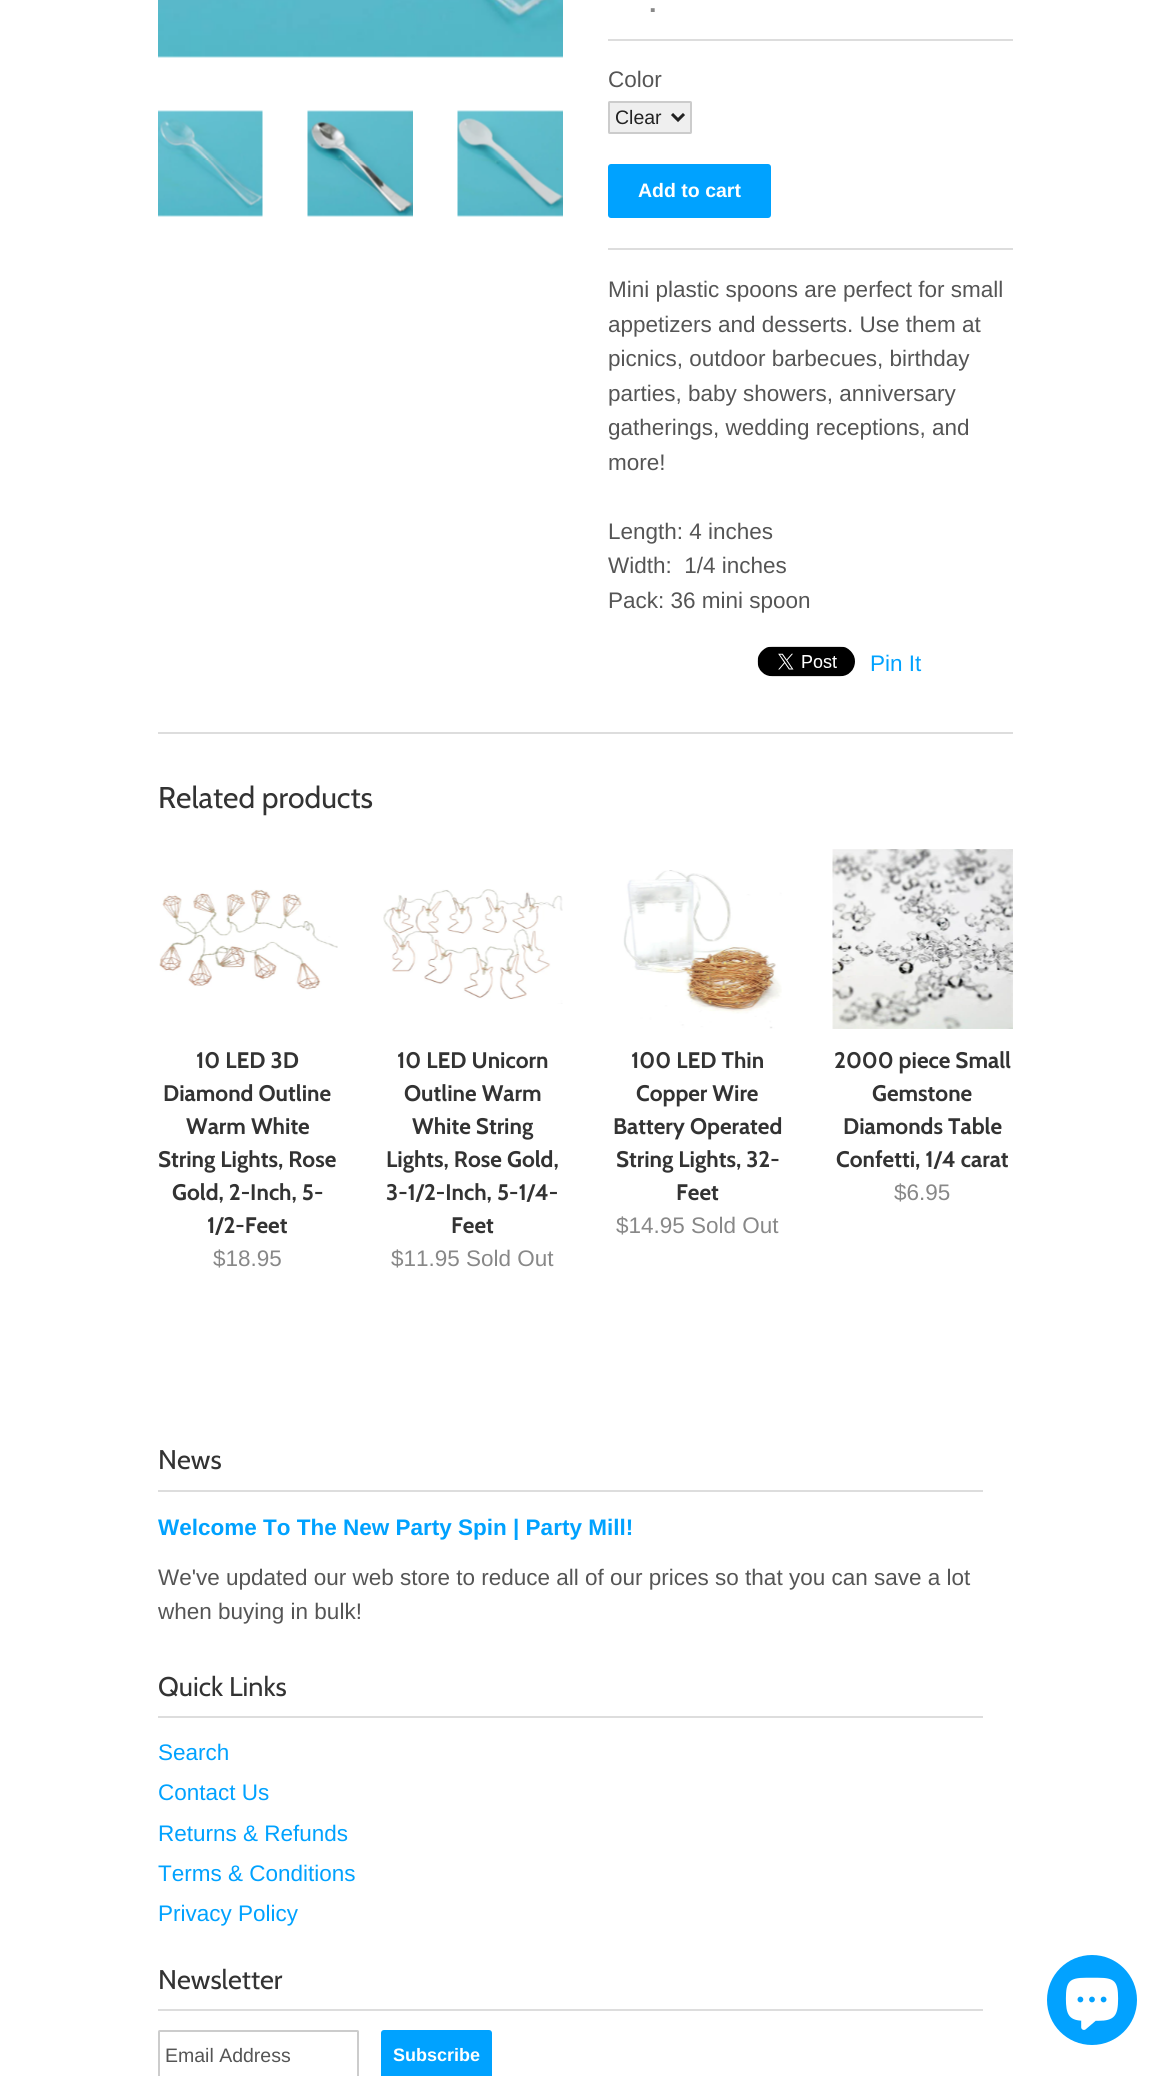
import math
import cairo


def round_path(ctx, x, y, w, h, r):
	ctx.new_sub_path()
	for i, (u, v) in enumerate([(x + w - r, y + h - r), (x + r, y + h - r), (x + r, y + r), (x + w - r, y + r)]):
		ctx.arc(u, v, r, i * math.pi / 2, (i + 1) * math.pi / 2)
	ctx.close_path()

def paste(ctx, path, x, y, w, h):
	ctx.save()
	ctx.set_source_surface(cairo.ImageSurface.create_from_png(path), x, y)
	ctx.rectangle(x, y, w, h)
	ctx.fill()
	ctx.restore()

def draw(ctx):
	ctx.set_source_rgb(1, 1, 1)
	ctx.paint()
	paste(ctx, 'media/1.png', 158, 0, 405, 58)
	paste(ctx, 'media/2.png', 158, 110, 105, 107)
	paste(ctx, 'media/3.png', 307, 110, 106, 107)
	paste(ctx, 'media/4.png', 457, 110, 106, 107)
	ctx.select_font_face('Cabin')
	ctx.set_font_size(36)
	ctx.set_source_rgb(0.533, 0.533, 0.533)
	ctx.move_to(649, 12)
	ctx.show_text('.')
	ctx.set_source_rgb(0.867, 0.867, 0.867)
	ctx.rectangle(608, 39, 405, 2)
	ctx.fill()
	ctx.rectangle(608, 248, 405, 2)
	ctx.fill()
	ctx.select_font_face('Liberation Sans')
	ctx.set_font_size(22.5)
	ctx.set_source_rgb(0.333, 0.333, 0.333)
	ctx.move_to(608, 87)
	ctx.show_text('Color')
	ctx.set_source_rgb(0.937, 0.937, 0.937)
	round_path(ctx, 609, 102, 82, 31, 0.5)
	ctx.fill_preserve()
	ctx.set_source_rgb(0.8, 0.8, 0.8)
	ctx.stroke()
	ctx.new_path()
	ctx.move_to(672, 114)
	ctx.line_to(678, 120)
	ctx.line_to(684, 114)
	ctx.set_source_rgb(0.133, 0.133, 0.133)
	ctx.set_line_width(3)
	ctx.stroke()
	ctx.set_font_size(19.5)
	ctx.move_to(615, 124)
	ctx.show_text('Clear')
	ctx.set_source_rgb(0, 0.635, 1)
	round_path(ctx, 608, 164, 163, 54, 3)
	ctx.fill()
	ctx.select_font_face('Liberation Sans', cairo.FONT_SLANT_NORMAL, cairo.FONT_WEIGHT_BOLD)
	ctx.set_source_rgb(1, 1, 1)
	ctx.move_to(638, 197)
	ctx.show_text('Add to cart')
	ctx.select_font_face('Liberation Sans')
	ctx.set_font_size(22.5)
	ctx.set_source_rgb(0.333, 0.333, 0.333)
	for x, y, s in [
		(608, 297, 'Mini plastic spoons are perfect for small'),
		(608, 332, 'appetizers and desserts. Use them at'),
		(608, 366, 'picnics, outdoor barbecues, birthday'),
		(608, 401, 'parties, baby showers, anniversary'),
		(608, 435, 'gatherings, wedding receptions, and'),
		(608, 470, 'more!'),
		(608, 539, 'Length: 4 inches'),
		(608, 573, 'Width:  1/4 inches'),
		(608, 608, 'Pack: 36 mini spoon'),
	]:
		ctx.move_to(x, y)
		ctx.show_text(s)
	paste(ctx, 'media/5.png', 757, 646, 98, 31)
	ctx.set_source_rgb(0, 0.635, 1)
	ctx.move_to(870, 671)
	ctx.show_text('Pin It')
	ctx.set_source_rgb(0.867, 0.867, 0.867)
	ctx.rectangle(158, 732, 855, 2)
	ctx.fill()
	ctx.select_font_face('Cabin')
	ctx.set_font_size(30)
	ctx.set_source_rgb(0.2, 0.2, 0.2)
	ctx.move_to(158, 808)
	ctx.show_text('Related products')
	paste(ctx, 'media/6.png', 159, 889, 179, 101)
	ctx.select_font_face('Cabin', cairo.FONT_SLANT_NORMAL, cairo.FONT_WEIGHT_BOLD)
	ctx.set_font_size(22.5)
	for x, y, s in [
		(196, 1068, '10 LED 3D'),
		(163, 1101, 'Diamond Outline'),
		(186, 1134, 'Warm White'),
		(158, 1167, 'String Lights, Rose'),
		(172, 1200, 'Gold, 2-Inch, 5-'),
		(207, 1233, '1/2-Feet'),
	]:
		ctx.move_to(x, y)
		ctx.show_text(s)
	ctx.select_font_face('Liberation Sans')
	ctx.set_source_rgb(0.533, 0.533, 0.533)
	ctx.move_to(213, 1266)
	ctx.show_text('$18.95')
	paste(ctx, 'media/7.png', 383, 889, 180, 115)
	ctx.select_font_face('Cabin', cairo.FONT_SLANT_NORMAL, cairo.FONT_WEIGHT_BOLD)
	ctx.set_source_rgb(0.2, 0.2, 0.2)
	for x, y, s in [
		(397, 1068, '10 LED Unicorn'),
		(404, 1101, 'Outline Warm'),
		(412, 1134, 'White String'),
		(386, 1167, 'Lights, Rose Gold,'),
		(386, 1200, '3-1/2-Inch, 5-1/4-'),
		(451, 1233, 'Feet'),
	]:
		ctx.move_to(x, y)
		ctx.show_text(s)
	ctx.select_font_face('Liberation Sans')
	ctx.set_source_rgb(0.533, 0.533, 0.533)
	ctx.move_to(391, 1266)
	ctx.show_text('$11.95 Sold Out')
	paste(ctx, 'media/8.png', 623, 870, 159, 159)
	ctx.select_font_face('Cabin', cairo.FONT_SLANT_NORMAL, cairo.FONT_WEIGHT_BOLD)
	ctx.set_source_rgb(0.2, 0.2, 0.2)
	for x, y, s in [
		(631, 1068, '100 LED Thin'),
		(636, 1101, 'Copper Wire'),
		(613, 1134, 'Battery Operated'),
		(616, 1167, 'String Lights, 32-'),
		(676, 1200, 'Feet'),
	]:
		ctx.move_to(x, y)
		ctx.show_text(s)
	ctx.select_font_face('Liberation Sans')
	ctx.set_source_rgb(0.533, 0.533, 0.533)
	ctx.move_to(616, 1233)
	ctx.show_text('$14.95 Sold Out')
	paste(ctx, 'media/9.png', 832, 849, 181, 180)
	ctx.select_font_face('Cabin', cairo.FONT_SLANT_NORMAL, cairo.FONT_WEIGHT_BOLD)
	ctx.set_source_rgb(0.2, 0.2, 0.2)
	for x, y, s in [
		(834, 1068, '2000 piece Small'),
		(872, 1101, 'Gemstone'),
		(843, 1134, 'Diamonds Table'),
		(836, 1167, 'Confetti, 1/4 carat'),
	]:
		ctx.move_to(x, y)
		ctx.show_text(s)
	ctx.select_font_face('Liberation Sans')
	ctx.set_source_rgb(0.533, 0.533, 0.533)
	ctx.move_to(894, 1200)
	ctx.show_text('$6.95')
	ctx.set_source_rgb(0.867, 0.867, 0.867)
	ctx.rectangle(158, 1490, 825, 2)
	ctx.fill()
	ctx.select_font_face('Cabin')
	ctx.set_font_size(27)
	ctx.set_source_rgb(0.2, 0.2, 0.2)
	ctx.move_to(158, 1469)
	ctx.show_text('News')
	ctx.select_font_face('Liberation Sans', cairo.FONT_SLANT_NORMAL, cairo.FONT_WEIGHT_BOLD)
	ctx.set_font_size(22.5)
	ctx.set_source_rgb(0, 0.635, 1)
	ctx.move_to(158, 1535)
	ctx.show_text('Welcome To The New Party Spin | Party Mill!')
	ctx.select_font_face('Liberation Sans')
	ctx.set_source_rgb(0.333, 0.333, 0.333)
	ctx.move_to(158, 1585)
	ctx.show_text('We\'ve updated our web store to reduce all of our prices so that you can save a lot')
	ctx.move_to(158, 1619)
	ctx.show_text('when buying in bulk!')
	ctx.set_source_rgb(0.867, 0.867, 0.867)
	ctx.rectangle(158, 1716, 825, 2)
	ctx.fill()
	ctx.select_font_face('Cabin')
	ctx.set_font_size(27)
	ctx.set_source_rgb(0.2, 0.2, 0.2)
	ctx.move_to(158, 1696)
	ctx.show_text('Quick Links')
	ctx.select_font_face('Liberation Sans')
	ctx.set_font_size(22.5)
	ctx.set_source_rgb(0, 0.635, 1)
	for x, y, s in [
		(158, 1760, 'Search'),
		(158, 1800, 'Contact Us'),
		(158, 1841, 'Returns & Refunds'),
		(158, 1881, 'Terms & Conditions'),
		(158, 1921, 'Privacy Policy'),
	]:
		ctx.move_to(x, y)
		ctx.show_text(s)
	ctx.set_source_rgb(0.867, 0.867, 0.867)
	ctx.rectangle(158, 2009, 825, 2)
	ctx.fill()
	ctx.select_font_face('Cabin')
	ctx.set_font_size(27)
	ctx.set_source_rgb(0.2, 0.2, 0.2)
	ctx.move_to(158, 1989)
	ctx.show_text('Newsletter')
	round_path(ctx, 159, 2031, 199, 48, 0.5)
	ctx.set_source_rgb(0.8, 0.8, 0.8)
	ctx.set_line_width(2)
	ctx.stroke()
	ctx.select_font_face('Liberation Sans')
	ctx.set_font_size(19.5)
	ctx.set_source_rgb(0.333, 0.333, 0.333)
	ctx.move_to(165, 2062)
	ctx.show_text('Email Address')
	ctx.set_source_rgb(0, 0.635, 1)
	round_path(ctx, 381, 2030, 111, 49, 3)
	ctx.fill()
	ctx.select_font_face('Liberation Sans', cairo.FONT_SLANT_NORMAL, cairo.FONT_WEIGHT_BOLD)
	ctx.set_font_size(18)
	ctx.set_source_rgb(1, 1, 1)
	ctx.move_to(393, 2061)
	ctx.show_text('Subscribe')
	ctx.set_source_rgb(0.008, 0.635, 1)
	ctx.new_path()
	ctx.arc(1092, 2000, 45, 0, 2 * math.pi)
	ctx.fill()
	paste(ctx, 'media/10.png', 1065, 1977, 54, 53)


surface = cairo.ImageSurface(cairo.FORMAT_RGB24, 1170, 2076)
ctx = cairo.Context(surface)
options = cairo.FontOptions()
options.set_hint_metrics(cairo.HINT_METRICS_OFF)
options.set_hint_style(cairo.HINT_STYLE_NONE)
ctx.set_font_options(options)
ctx.set_miter_limit(4)
draw(ctx)
surface.write_to_png('image.png')
